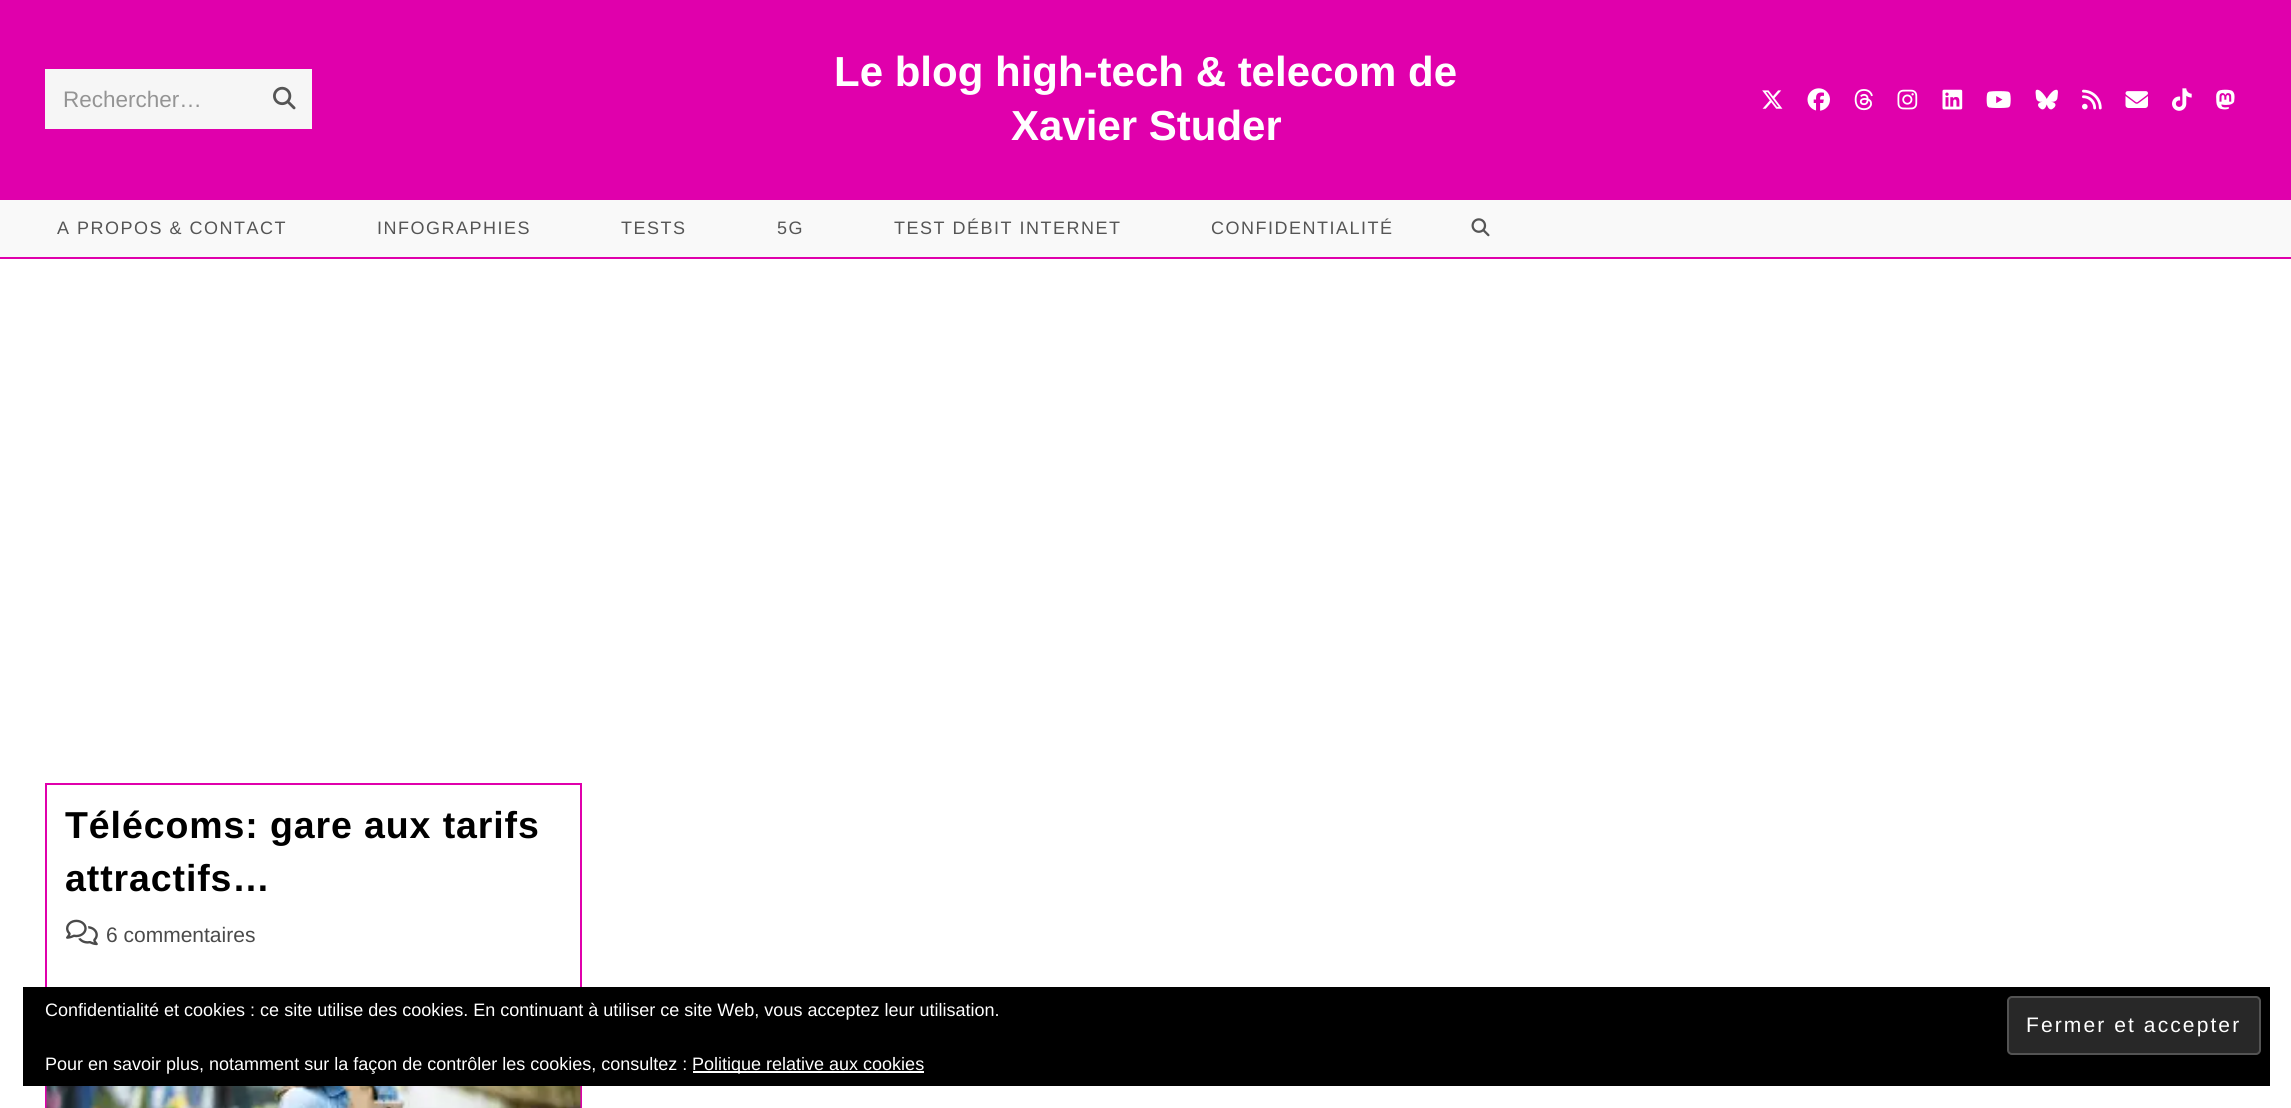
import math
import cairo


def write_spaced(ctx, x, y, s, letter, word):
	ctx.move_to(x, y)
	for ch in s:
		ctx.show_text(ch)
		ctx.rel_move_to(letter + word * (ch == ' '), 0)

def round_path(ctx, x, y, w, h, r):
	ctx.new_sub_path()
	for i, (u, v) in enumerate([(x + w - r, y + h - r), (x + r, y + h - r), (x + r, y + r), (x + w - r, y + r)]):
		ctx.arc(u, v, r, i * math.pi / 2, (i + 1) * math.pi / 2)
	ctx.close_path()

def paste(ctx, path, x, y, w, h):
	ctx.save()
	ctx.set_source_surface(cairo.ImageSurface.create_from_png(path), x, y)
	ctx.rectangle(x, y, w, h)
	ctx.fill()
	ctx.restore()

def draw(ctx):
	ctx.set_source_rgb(1, 1, 1)
	ctx.paint()
	ctx.set_source_rgb(0.878, 0, 0.675)
	ctx.rectangle(0, 257, 2291, 2)
	ctx.rectangle(0, 0, 2291, 200)
	ctx.fill()
	ctx.set_source_rgb(0.961, 0.961, 0.961)
	ctx.rectangle(45, 69, 267, 60)
	ctx.fill()
	ctx.select_font_face('Liberation Sans')
	ctx.set_font_size(22.5)
	ctx.set_source_rgb(0.58, 0.58, 0.58)
	ctx.move_to(63, 107)
	ctx.show_text('Rechercher…')
	paste(ctx, 'media/1.png', 273, 86, 23, 24)
	ctx.select_font_face('Liberation Sans', cairo.FONT_SLANT_NORMAL, cairo.FONT_WEIGHT_BOLD)
	ctx.set_font_size(42)
	ctx.set_source_rgb(1, 1, 1)
	ctx.move_to(834, 86)
	ctx.show_text('Le blog high-tech & telecom de')
	ctx.move_to(1011, 140)
	ctx.show_text('Xavier Studer')
	paste(ctx, 'media/2.png', 1762, 90, 21, 19)
	paste(ctx, 'media/3.png', 1807, 88, 23, 23)
	paste(ctx, 'media/4.png', 1854, 89, 19, 22)
	paste(ctx, 'media/5.png', 1897, 89, 21, 21)
	paste(ctx, 'media/6.png', 1942, 89, 21, 21)
	paste(ctx, 'media/7.png', 1986, 91, 25, 17)
	paste(ctx, 'media/8.png', 2035, 89, 23, 21)
	paste(ctx, 'media/9.png', 2082, 89, 20, 21)
	paste(ctx, 'media/10.png', 2125, 91, 23, 17)
	paste(ctx, 'media/11.png', 2172, 88, 20, 23)
	paste(ctx, 'media/12.png', 2216, 89, 19, 21)
	ctx.set_source_rgb(0.976, 0.976, 0.976)
	ctx.rectangle(0, 200, 2291, 57)
	ctx.fill()
	ctx.select_font_face('Liberation Sans')
	ctx.set_font_size(18)
	ctx.set_source_rgb(0.333, 0.333, 0.333)
	for x, y, s in [
		(57, 234, 'A PROPOS & CONTACT'),
		(377, 234, 'INFOGRAPHIES'),
		(621, 234, 'TESTS'),
		(777, 234, '5G'),
		(894, 234, 'TEST DÉBIT INTERNET'),
		(1211, 234, 'CONFIDENTIALITÉ'),
	]:
		write_spaced(ctx, x, y, s, 1.5, 0)
	paste(ctx, 'media/13.png', 1471, 218, 19, 19)
	ctx.rectangle(46, 784, 535, 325)
	ctx.set_source_rgb(0.878, 0, 0.675)
	ctx.stroke()
	ctx.select_font_face('Liberation Sans', cairo.FONT_SLANT_NORMAL, cairo.FONT_WEIGHT_BOLD)
	ctx.set_font_size(37.5)
	ctx.set_source_rgb(0, 0, 0)
	write_spaced(ctx, 65, 838, 'Télécoms: gare aux tarifs', 0.9, 0)
	write_spaced(ctx, 65, 891, 'attractifs…', 0.9, 0)
	paste(ctx, 'media/14.png', 66, 919, 32, 27)
	ctx.select_font_face('Liberation Sans')
	ctx.set_font_size(21)
	ctx.set_source_rgb(0.29, 0.29, 0.29)
	ctx.move_to(106, 942)
	ctx.show_text('6 commentaires')
	paste(ctx, 'media/15.png', 46, 1086, 535, 22)
	ctx.set_source_rgb(0, 0, 0)
	ctx.rectangle(23, 987, 2247, 99)
	ctx.fill()
	ctx.set_font_size(18)
	ctx.set_source_rgb(1, 1, 1)
	ctx.move_to(45, 1016)
	ctx.show_text('Confidentialité et cookies : ce site utilise des cookies. En continuant à utiliser ce site Web, vous acceptez leur utilisation.')
	ctx.set_source_rgb(0.157, 0.157, 0.157)
	round_path(ctx, 2008, 997, 252, 57, 4)
	ctx.fill_preserve()
	ctx.set_source_rgb(0.325, 0.325, 0.325)
	ctx.stroke()
	ctx.set_font_size(21)
	ctx.set_source_rgb(1, 1, 1)
	write_spaced(ctx, 2026, 1032, 'Fermer et accepter', 2.1, 0)
	ctx.set_font_size(18)
	ctx.move_to(45, 1070)
	ctx.show_text('Pour en savoir plus, notamment sur la façon de contrôler les cookies, consultez :')
	ctx.rectangle(693, 1071, 231, 2)
	ctx.fill()
	ctx.move_to(692, 1070)
	ctx.show_text('Politique relative aux cookies')


surface = cairo.ImageSurface(cairo.FORMAT_RGB24, 2291, 1108)
ctx = cairo.Context(surface)
options = cairo.FontOptions()
options.set_hint_metrics(cairo.HINT_METRICS_OFF)
options.set_hint_style(cairo.HINT_STYLE_NONE)
ctx.set_font_options(options)
ctx.set_miter_limit(4)
draw(ctx)
surface.write_to_png('image.png')
